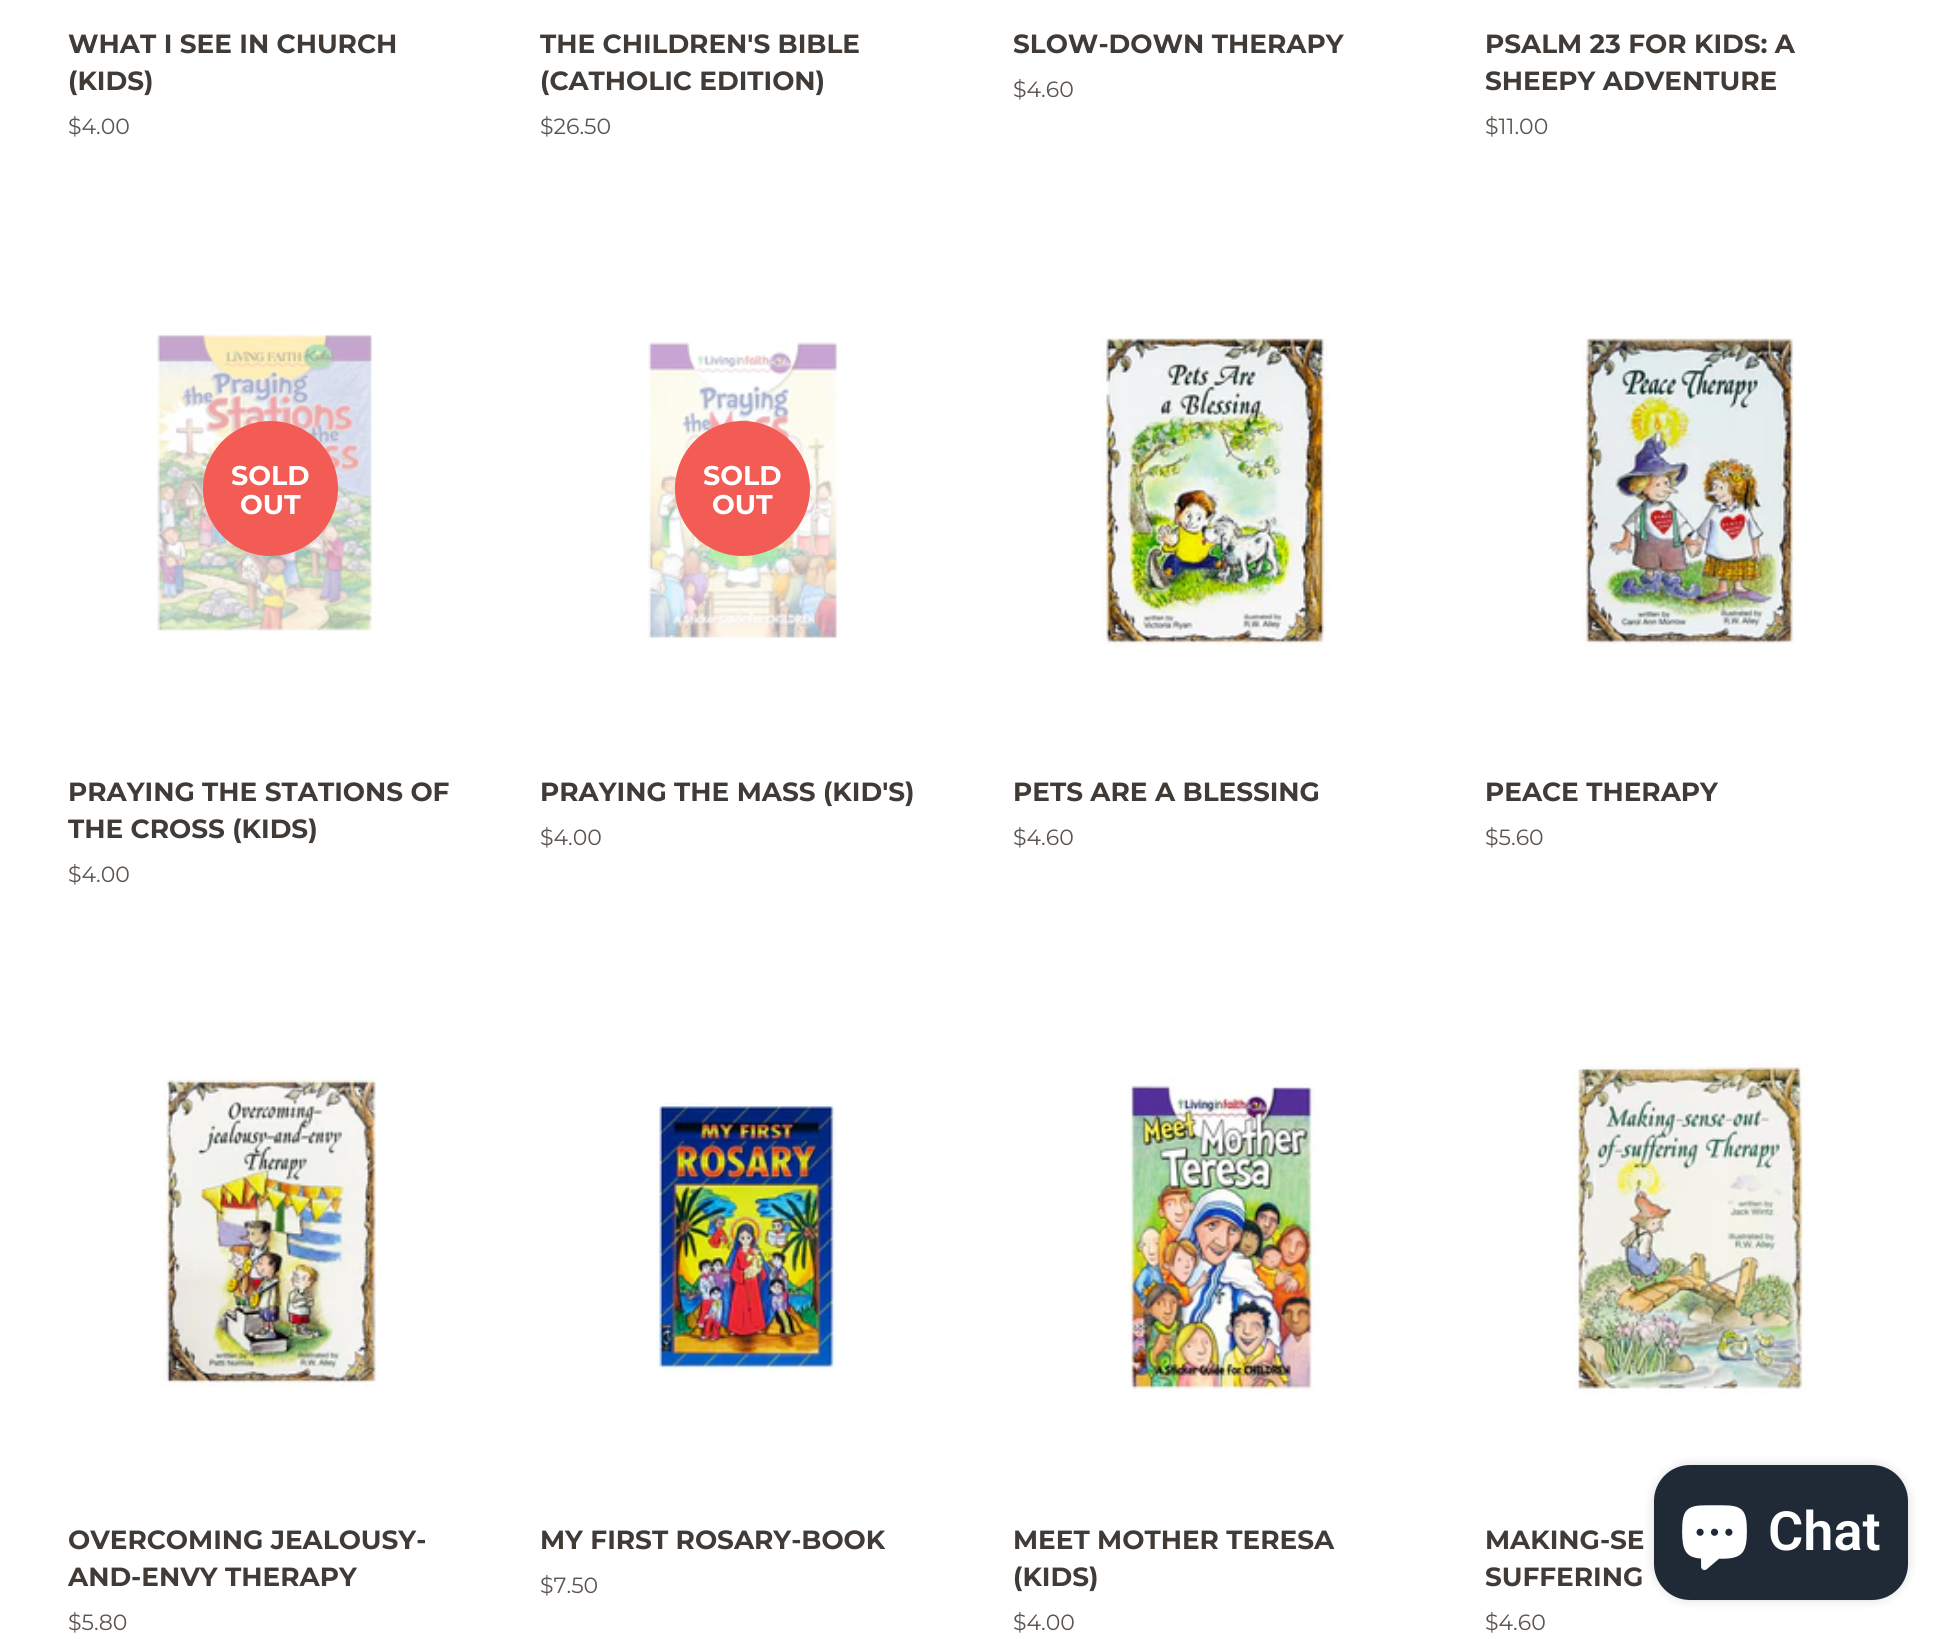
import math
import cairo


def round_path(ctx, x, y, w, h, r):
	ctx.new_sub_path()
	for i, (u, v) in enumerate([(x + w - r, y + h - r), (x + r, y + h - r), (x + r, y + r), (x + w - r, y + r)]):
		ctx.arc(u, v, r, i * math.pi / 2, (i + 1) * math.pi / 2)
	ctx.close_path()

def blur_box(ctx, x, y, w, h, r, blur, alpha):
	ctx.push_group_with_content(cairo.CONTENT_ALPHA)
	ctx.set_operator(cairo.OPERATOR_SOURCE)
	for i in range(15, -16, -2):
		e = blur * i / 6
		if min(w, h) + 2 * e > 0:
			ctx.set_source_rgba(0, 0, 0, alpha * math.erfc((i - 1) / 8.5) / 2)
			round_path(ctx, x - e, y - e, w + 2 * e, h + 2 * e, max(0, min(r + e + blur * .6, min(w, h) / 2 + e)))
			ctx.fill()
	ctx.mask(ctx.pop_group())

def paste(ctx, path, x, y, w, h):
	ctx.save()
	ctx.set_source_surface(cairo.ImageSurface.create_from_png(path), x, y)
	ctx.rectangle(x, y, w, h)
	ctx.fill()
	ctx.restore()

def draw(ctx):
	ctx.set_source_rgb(1, 1, 1)
	ctx.paint()
	ctx.select_font_face('Montserrat', cairo.FONT_SLANT_NORMAL, cairo.FONT_WEIGHT_BOLD)
	ctx.set_font_size(26.3)
	ctx.set_source_rgb(0.251, 0.231, 0.216)
	ctx.move_to(68, 53)
	ctx.show_text('WHAT I SEE IN CHURCH')
	ctx.move_to(68, 90)
	ctx.show_text('(KIDS)')
	ctx.select_font_face('Montserrat')
	ctx.set_font_size(22)
	ctx.set_source_rgb(0.357, 0.329, 0.31)
	ctx.move_to(68, 134)
	ctx.show_text('$4.00')
	ctx.select_font_face('Montserrat', cairo.FONT_SLANT_NORMAL, cairo.FONT_WEIGHT_BOLD)
	ctx.set_font_size(26.3)
	ctx.set_source_rgb(0.251, 0.231, 0.216)
	ctx.move_to(540, 53)
	ctx.show_text('THE CHILDREN\'S BIBLE')
	ctx.move_to(540, 90)
	ctx.show_text('(CATHOLIC EDITION)')
	ctx.select_font_face('Montserrat')
	ctx.set_font_size(22)
	ctx.set_source_rgb(0.357, 0.329, 0.31)
	ctx.move_to(540, 134)
	ctx.show_text('$26.50')
	ctx.select_font_face('Montserrat', cairo.FONT_SLANT_NORMAL, cairo.FONT_WEIGHT_BOLD)
	ctx.set_font_size(26.3)
	ctx.set_source_rgb(0.251, 0.231, 0.216)
	ctx.move_to(1013, 53)
	ctx.show_text('SLOW-DOWN THERAPY')
	ctx.select_font_face('Montserrat')
	ctx.set_font_size(22)
	ctx.set_source_rgb(0.357, 0.329, 0.31)
	ctx.move_to(1013, 97)
	ctx.show_text('$4.60')
	ctx.select_font_face('Montserrat', cairo.FONT_SLANT_NORMAL, cairo.FONT_WEIGHT_BOLD)
	ctx.set_font_size(26.3)
	ctx.set_source_rgb(0.251, 0.231, 0.216)
	ctx.move_to(1485, 53)
	ctx.show_text('PSALM 23 FOR KIDS: A')
	ctx.move_to(1485, 90)
	ctx.show_text('SHEEPY ADVENTURE')
	ctx.select_font_face('Montserrat')
	ctx.set_font_size(22)
	ctx.set_source_rgb(0.357, 0.329, 0.31)
	ctx.move_to(1485, 134)
	ctx.show_text('$11.00')
	paste(ctx, 'media/1.png', 156, 333, 218, 300)
	ctx.set_source_rgb(0.949, 0.361, 0.329)
	ctx.arc(270.5, 488.5, 67.5, 0, 2 * math.pi)
	ctx.fill()
	ctx.select_font_face('Montserrat', cairo.FONT_SLANT_NORMAL, cairo.FONT_WEIGHT_BOLD)
	ctx.set_font_size(27)
	ctx.set_source_rgb(1, 1, 1)
	ctx.move_to(231, 485)
	ctx.show_text('SOLD')
	ctx.move_to(240, 514)
	ctx.show_text('OUT')
	ctx.set_font_size(26.3)
	ctx.set_source_rgb(0.251, 0.231, 0.216)
	ctx.move_to(68, 801)
	ctx.show_text('PRAYING THE STATIONS OF')
	ctx.move_to(68, 838)
	ctx.show_text('THE CROSS (KIDS)')
	ctx.select_font_face('Montserrat')
	ctx.set_font_size(22)
	ctx.set_source_rgb(0.357, 0.329, 0.31)
	ctx.move_to(68, 882)
	ctx.show_text('$4.00')
	paste(ctx, 'media/2.png', 648, 342, 191, 297)
	ctx.set_source_rgb(0.949, 0.361, 0.329)
	ctx.arc(742.5, 488.5, 67.5, 0, 2 * math.pi)
	ctx.fill()
	ctx.select_font_face('Montserrat', cairo.FONT_SLANT_NORMAL, cairo.FONT_WEIGHT_BOLD)
	ctx.set_font_size(27)
	ctx.set_source_rgb(1, 1, 1)
	ctx.move_to(703, 485)
	ctx.show_text('SOLD')
	ctx.move_to(712, 514)
	ctx.show_text('OUT')
	ctx.set_font_size(26.3)
	ctx.set_source_rgb(0.251, 0.231, 0.216)
	ctx.move_to(540, 801)
	ctx.show_text('PRAYING THE MASS (KID\'S)')
	ctx.select_font_face('Montserrat')
	ctx.set_font_size(22)
	ctx.set_source_rgb(0.357, 0.329, 0.31)
	ctx.move_to(540, 845)
	ctx.show_text('$4.00')
	paste(ctx, 'media/3.png', 1101, 330, 228, 323)
	ctx.select_font_face('Montserrat', cairo.FONT_SLANT_NORMAL, cairo.FONT_WEIGHT_BOLD)
	ctx.set_font_size(26.3)
	ctx.set_source_rgb(0.251, 0.231, 0.216)
	ctx.move_to(1013, 801)
	ctx.show_text('PETS ARE A BLESSING')
	ctx.select_font_face('Montserrat')
	ctx.set_font_size(22)
	ctx.set_source_rgb(0.357, 0.329, 0.31)
	ctx.move_to(1013, 845)
	ctx.show_text('$4.60')
	paste(ctx, 'media/4.png', 1581, 336, 215, 311)
	ctx.select_font_face('Montserrat', cairo.FONT_SLANT_NORMAL, cairo.FONT_WEIGHT_BOLD)
	ctx.set_font_size(26.3)
	ctx.set_source_rgb(0.251, 0.231, 0.216)
	ctx.move_to(1485, 801)
	ctx.show_text('PEACE THERAPY')
	ctx.select_font_face('Montserrat')
	ctx.set_font_size(22)
	ctx.set_source_rgb(0.357, 0.329, 0.31)
	ctx.move_to(1485, 845)
	ctx.show_text('$5.60')
	paste(ctx, 'media/5.png', 163, 1077, 215, 310)
	ctx.select_font_face('Montserrat', cairo.FONT_SLANT_NORMAL, cairo.FONT_WEIGHT_BOLD)
	ctx.set_font_size(26.3)
	ctx.set_source_rgb(0.251, 0.231, 0.216)
	ctx.move_to(68, 1549)
	ctx.show_text('OVERCOMING JEALOUSY-')
	ctx.move_to(68, 1586)
	ctx.show_text('AND-ENVY THERAPY')
	ctx.select_font_face('Montserrat')
	ctx.set_font_size(22)
	ctx.set_source_rgb(0.357, 0.329, 0.31)
	ctx.move_to(68, 1630)
	ctx.show_text('$5.80')
	paste(ctx, 'media/6.png', 656, 1103, 180, 269)
	ctx.select_font_face('Montserrat', cairo.FONT_SLANT_NORMAL, cairo.FONT_WEIGHT_BOLD)
	ctx.set_font_size(26.3)
	ctx.set_source_rgb(0.251, 0.231, 0.216)
	ctx.move_to(540, 1549)
	ctx.show_text('MY FIRST ROSARY-BOOK')
	ctx.select_font_face('Montserrat')
	ctx.set_font_size(22)
	ctx.set_source_rgb(0.357, 0.329, 0.31)
	ctx.move_to(540, 1593)
	ctx.show_text('$7.50')
	paste(ctx, 'media/7.png', 1128, 1077, 194, 317)
	ctx.select_font_face('Montserrat', cairo.FONT_SLANT_NORMAL, cairo.FONT_WEIGHT_BOLD)
	ctx.set_font_size(26.3)
	ctx.set_source_rgb(0.251, 0.231, 0.216)
	ctx.move_to(1013, 1549)
	ctx.show_text('MEET MOTHER TERESA')
	ctx.move_to(1013, 1586)
	ctx.show_text('(KIDS)')
	ctx.select_font_face('Montserrat')
	ctx.set_font_size(22)
	ctx.set_source_rgb(0.357, 0.329, 0.31)
	ctx.move_to(1013, 1630)
	ctx.show_text('$4.00')
	paste(ctx, 'media/8.png', 1573, 1062, 236, 332)
	ctx.select_font_face('Montserrat', cairo.FONT_SLANT_NORMAL, cairo.FONT_WEIGHT_BOLD)
	ctx.set_font_size(26.3)
	ctx.set_source_rgb(0.251, 0.231, 0.216)
	ctx.move_to(1485, 1549)
	ctx.show_text('MAKING-SE')
	ctx.move_to(1485, 1586)
	ctx.show_text('SUFFERING')
	ctx.select_font_face('Montserrat')
	ctx.set_font_size(22)
	ctx.set_source_rgb(0.357, 0.329, 0.31)
	ctx.move_to(1485, 1630)
	ctx.show_text('$4.60')
	ctx.set_source_rgb(0, 0, 0)
	blur_box(ctx, 1654, 1465, 254, 135, 36, 5.5, 0.15)
	ctx.set_source_rgb(0.125, 0.165, 0.212)
	round_path(ctx, 1654, 1465, 254, 135, 36)
	ctx.fill()
	paste(ctx, 'media/9.png', 1682, 1505, 65, 65)
	ctx.select_font_face('Roboto SemiBold')
	ctx.set_font_size(54)
	ctx.set_source_rgb(1, 1, 1)
	ctx.move_to(1768, 1550)
	ctx.show_text('Chat')


surface = cairo.ImageSurface(cairo.FORMAT_RGB24, 1957, 1647)
ctx = cairo.Context(surface)
options = cairo.FontOptions()
options.set_hint_metrics(cairo.HINT_METRICS_OFF)
options.set_hint_style(cairo.HINT_STYLE_NONE)
ctx.set_font_options(options)
ctx.set_miter_limit(4)
draw(ctx)
surface.write_to_png('image.png')
